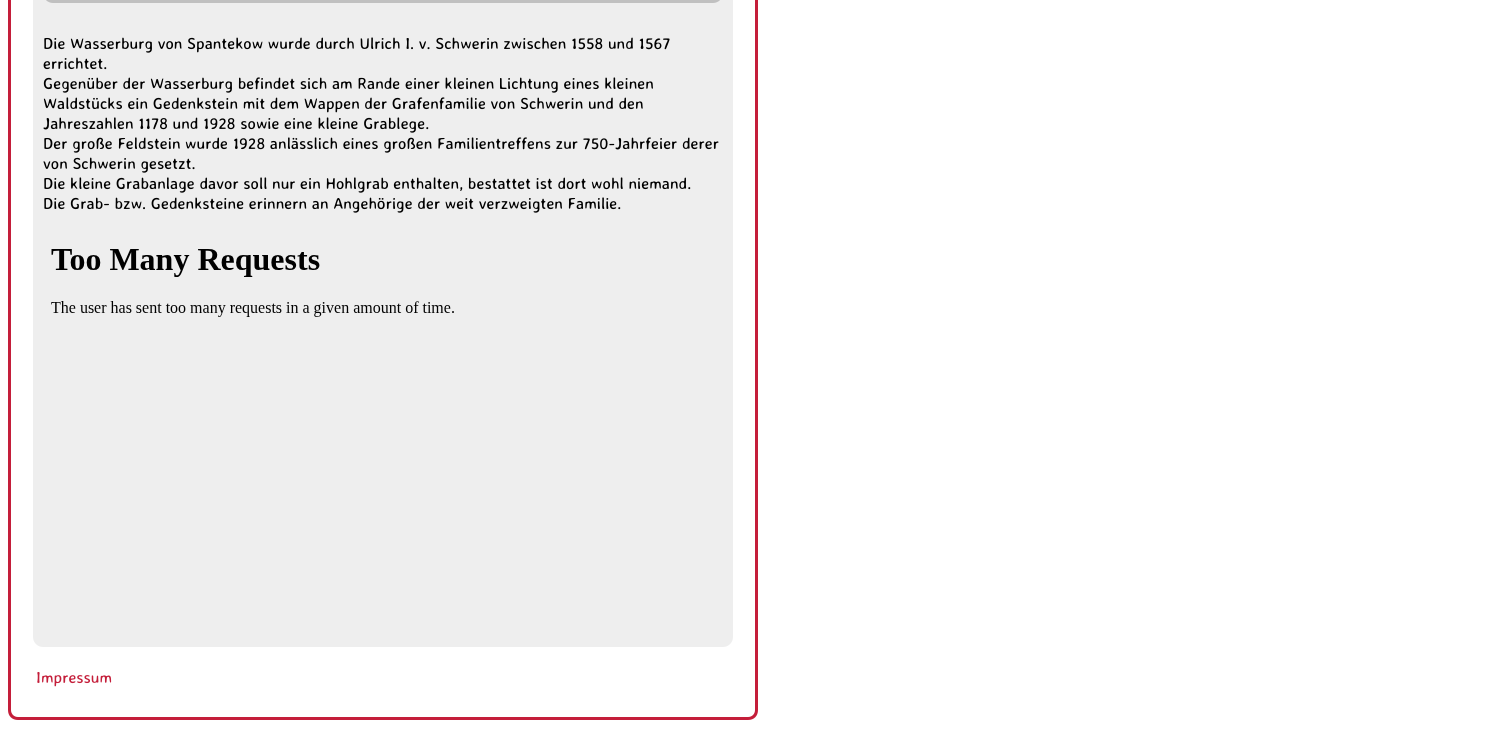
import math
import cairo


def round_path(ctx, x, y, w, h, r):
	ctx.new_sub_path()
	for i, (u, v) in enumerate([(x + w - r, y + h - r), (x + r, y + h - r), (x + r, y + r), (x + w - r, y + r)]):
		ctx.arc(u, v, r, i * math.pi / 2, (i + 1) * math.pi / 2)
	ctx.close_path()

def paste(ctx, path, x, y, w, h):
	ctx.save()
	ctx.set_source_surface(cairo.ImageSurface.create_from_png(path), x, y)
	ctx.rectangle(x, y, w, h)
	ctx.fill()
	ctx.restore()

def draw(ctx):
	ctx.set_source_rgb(1, 1, 1)
	ctx.paint()
	ctx.set_source_rgb(0.769, 0.118, 0.227)
	ctx.rectangle(755, 0, 3, 647)
	ctx.fill()
	ctx.rectangle(8, 0, 3, 647)
	ctx.fill()
	ctx.set_source_rgb(0.933, 0.933, 0.933)
	round_path(ctx, 33, -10, 700, 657, 10)
	ctx.fill()
	ctx.set_source_rgb(0.753, 0.753, 0.753)
	round_path(ctx, 43, -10, 680, 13, 10)
	ctx.fill()
	ctx.select_font_face('Averia Sans Libre')
	ctx.set_font_size(16)
	ctx.set_source_rgb(0, 0, 0)
	for x, y, s in [
		(43, 49, 'Die Wasserburg von Spantekow wurde durch Ulrich I. v. Schwerin zwischen 1558 und 1567'),
		(43, 69, 'errichtet.'),
		(43, 89, 'Gegenüber der Wasserburg befindet sich am Rande einer kleinen Lichtung eines kleinen'),
		(43, 109, 'Waldstücks ein Gedenkstein mit dem Wappen der Grafenfamilie von Schwerin und den'),
		(43, 129, 'Jahreszahlen 1178 und 1928 sowie eine kleine Grablege.'),
		(43, 149, 'Der große Feldstein wurde 1928 anlässlich eines großen Familientreffens zur 750-Jahrfeier derer'),
		(43, 169, 'von Schwerin gesetzt.'),
		(43, 189, 'Die kleine Grabanlage davor soll nur ein Hohlgrab enthalten, bestattet ist dort wohl niemand.'),
		(43, 209, 'Die Grab- bzw. Gedenksteine erinnern an Angehörige der weit verzweigten Familie.'),
	]:
		ctx.move_to(x, y)
		ctx.show_text(s)
	paste(ctx, 'media/1.png', 51, 249, 403, 68)
	ctx.set_source_rgb(0.769, 0.118, 0.227)
	ctx.set_fill_rule(cairo.FILL_RULE_EVEN_ODD)
	ctx.new_path()
	ctx.move_to(8, 647)
	ctx.line_to(758, 647)
	ctx.line_to(758, 710)
	ctx.curve_to(758, 716, 754, 720, 748, 720)
	ctx.line_to(18, 720)
	ctx.curve_to(12, 720, 8, 716, 8, 710)
	ctx.close_path()
	ctx.move_to(11, 647)
	ctx.line_to(755, 647)
	ctx.line_to(755, 710)
	ctx.curve_to(755, 714, 752, 717, 748, 717)
	ctx.line_to(18, 717)
	ctx.curve_to(14, 717, 11, 714, 11, 710)
	ctx.close_path()
	ctx.fill()
	ctx.move_to(36, 683)
	ctx.show_text('Impressum')


surface = cairo.ImageSurface(cairo.FORMAT_RGB24, 1495, 751)
ctx = cairo.Context(surface)
options = cairo.FontOptions()
options.set_hint_metrics(cairo.HINT_METRICS_OFF)
options.set_hint_style(cairo.HINT_STYLE_NONE)
ctx.set_font_options(options)
ctx.set_miter_limit(4)
draw(ctx)
surface.write_to_png('image.png')
